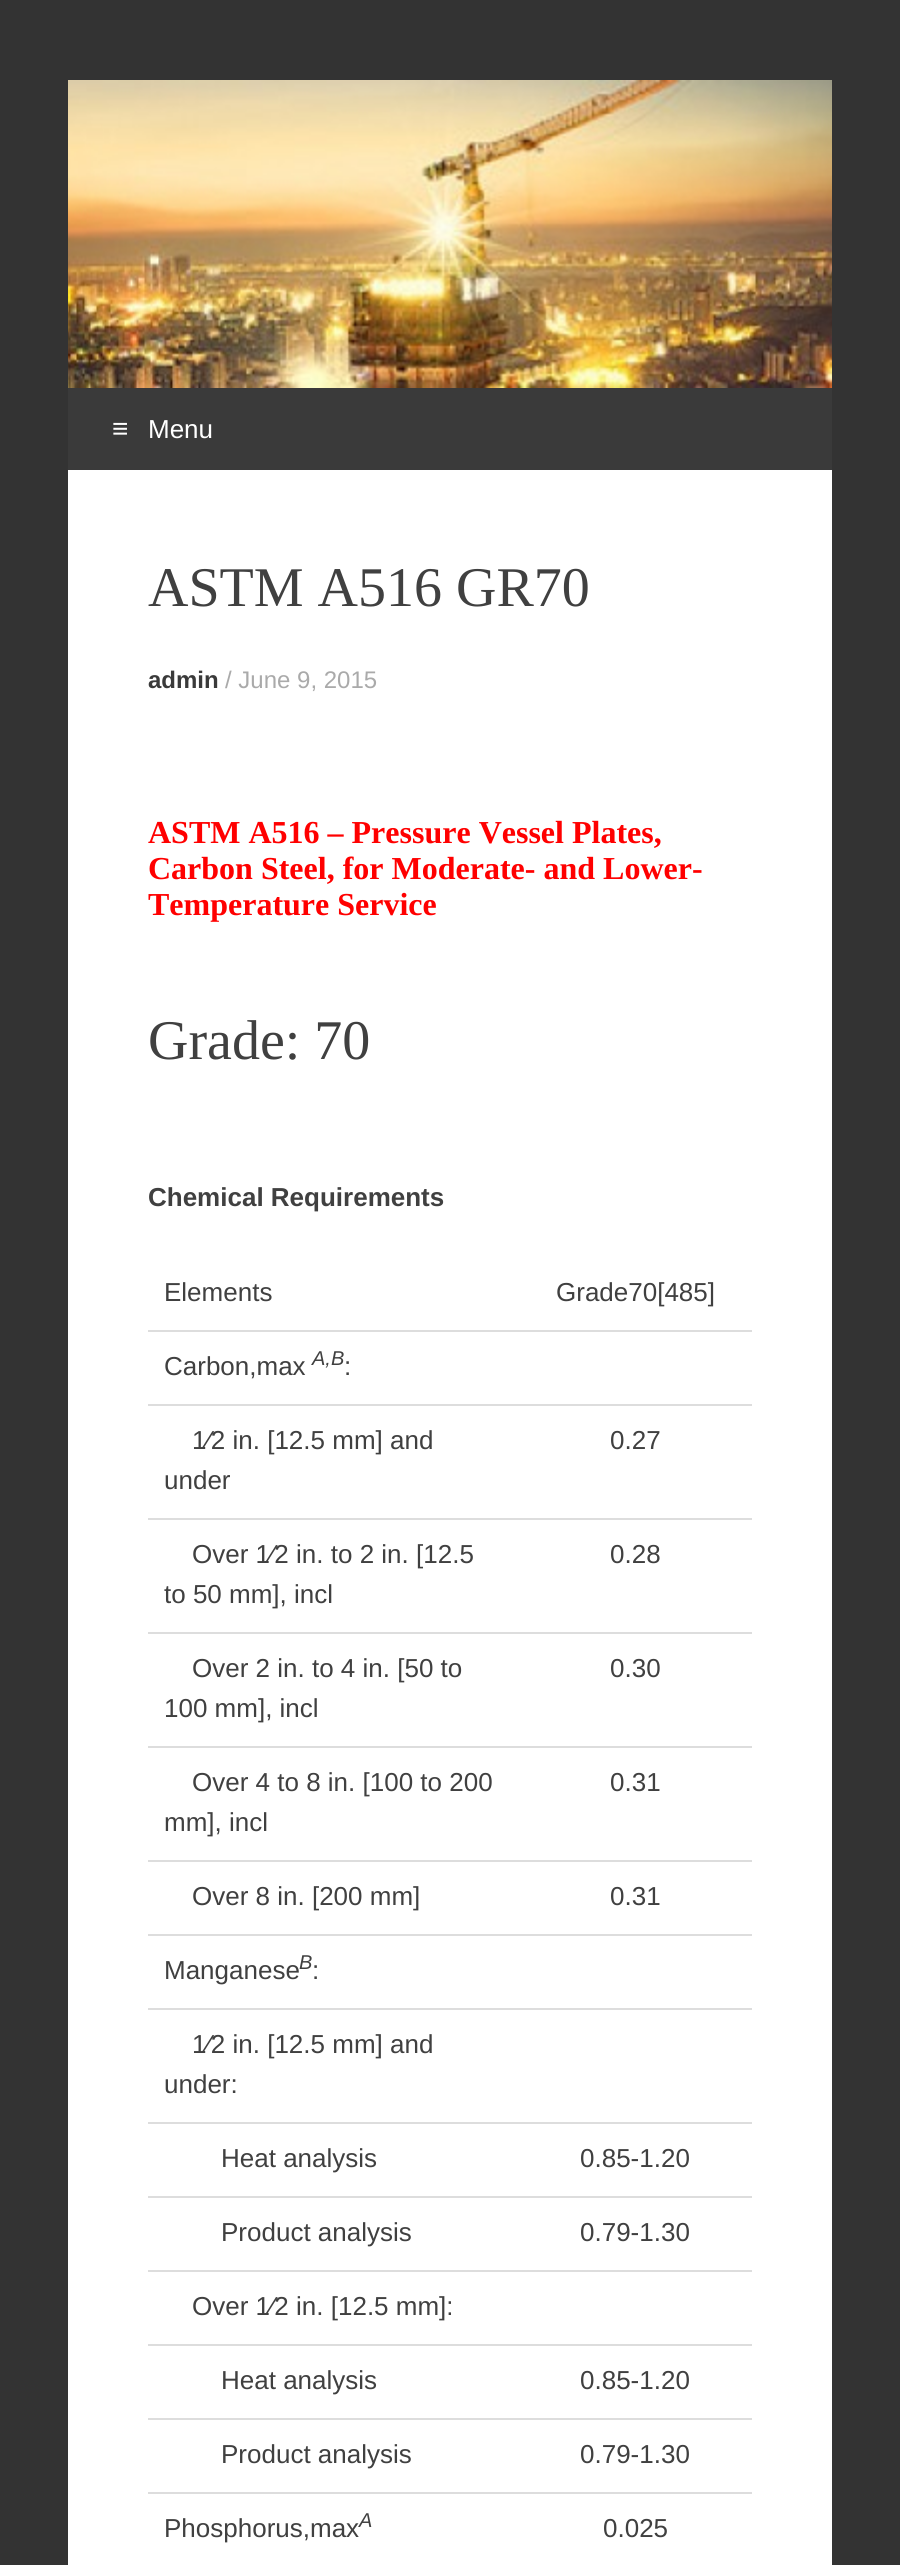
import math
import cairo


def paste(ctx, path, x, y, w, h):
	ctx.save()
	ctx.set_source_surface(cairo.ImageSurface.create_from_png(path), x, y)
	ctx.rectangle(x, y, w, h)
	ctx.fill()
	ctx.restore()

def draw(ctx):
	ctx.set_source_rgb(0.2, 0.2, 0.2)
	ctx.paint()
	ctx.set_source_rgb(1, 1, 1)
	ctx.rectangle(68, 470, 764, 2095)
	ctx.fill()
	paste(ctx, 'media/1.png', 68, 80, 764, 308)
	ctx.set_source_rgb(0.227, 0.227, 0.227)
	ctx.rectangle(68, 388, 764, 82)
	ctx.fill()
	ctx.select_font_face('Liberation Sans')
	ctx.set_font_size(28)
	ctx.set_source_rgb(1, 1, 1)
	ctx.move_to(112, 438)
	ctx.show_text('≡')
	ctx.set_font_size(26)
	ctx.move_to(148, 438)
	ctx.show_text('Menu')
	ctx.select_font_face('Liberation Serif')
	ctx.set_font_size(56)
	ctx.set_source_rgb(0.251, 0.251, 0.251)
	ctx.move_to(148, 606)
	ctx.show_text('ASTM A516 GR70')
	ctx.select_font_face('Liberation Sans', cairo.FONT_SLANT_NORMAL, cairo.FONT_WEIGHT_BOLD)
	ctx.set_font_size(24)
	ctx.set_source_rgb(0.227, 0.227, 0.227)
	ctx.move_to(148, 688)
	ctx.show_text('admin')
	ctx.select_font_face('Liberation Sans')
	ctx.set_source_rgb(0.667, 0.667, 0.667)
	ctx.move_to(225, 688)
	ctx.show_text('/ June 9, 2015')
	ctx.select_font_face('Liberation Serif', cairo.FONT_SLANT_NORMAL, cairo.FONT_WEIGHT_BOLD)
	ctx.set_font_size(32)
	ctx.set_source_rgb(1, 0, 0)
	for x, y, s in [
		(148, 843, 'ASTM A516 – Pressure Vessel Plates,'),
		(148, 879, 'Carbon Steel, for Moderate- and Lower-'),
		(148, 915, 'Temperature Service'),
	]:
		ctx.move_to(x, y)
		ctx.show_text(s)
	ctx.select_font_face('Liberation Serif')
	ctx.set_font_size(56)
	ctx.set_source_rgb(0.251, 0.251, 0.251)
	ctx.move_to(148, 1059)
	ctx.show_text('Grade: 70')
	ctx.select_font_face('Liberation Sans', cairo.FONT_SLANT_NORMAL, cairo.FONT_WEIGHT_BOLD)
	ctx.set_font_size(26)
	ctx.move_to(148, 1206)
	ctx.show_text('Chemical Requirements')
	ctx.set_source_rgb(0.867, 0.867, 0.867)
	ctx.rectangle(148, 1330, 604, 2)
	ctx.fill()
	ctx.select_font_face('Liberation Sans')
	ctx.set_source_rgb(0.251, 0.251, 0.251)
	ctx.move_to(164, 1301)
	ctx.show_text('Elements')
	ctx.move_to(556, 1301)
	ctx.show_text('Grade70[485]')
	ctx.set_source_rgb(0.867, 0.867, 0.867)
	ctx.rectangle(148, 1404, 604, 2)
	ctx.fill()
	ctx.set_source_rgb(0.251, 0.251, 0.251)
	ctx.move_to(164, 1375)
	ctx.show_text('Carbon,max')
	ctx.select_font_face('Liberation Sans', cairo.FONT_SLANT_ITALIC)
	ctx.set_font_size(20)
	ctx.move_to(312, 1365)
	ctx.show_text('A,B')
	ctx.select_font_face('Liberation Sans')
	ctx.set_font_size(26)
	ctx.move_to(344, 1375)
	ctx.show_text(':')
	ctx.set_source_rgb(0.867, 0.867, 0.867)
	ctx.rectangle(148, 1518, 604, 2)
	ctx.fill()
	ctx.set_source_rgb(0.251, 0.251, 0.251)
	for x, y, s in [
		(192, 1449, '1⁄2 in. [12.5 mm] and'),
		(164, 1489, 'under'),
		(610, 1449, '0.27'),
	]:
		ctx.move_to(x, y)
		ctx.show_text(s)
	ctx.set_source_rgb(0.867, 0.867, 0.867)
	ctx.rectangle(148, 1632, 604, 2)
	ctx.fill()
	ctx.set_source_rgb(0.251, 0.251, 0.251)
	for x, y, s in [
		(192, 1563, 'Over 1⁄2 in. to 2 in. [12.5'),
		(164, 1603, 'to 50 mm], incl'),
		(610, 1563, '0.28'),
	]:
		ctx.move_to(x, y)
		ctx.show_text(s)
	ctx.set_source_rgb(0.867, 0.867, 0.867)
	ctx.rectangle(148, 1746, 604, 2)
	ctx.fill()
	ctx.set_source_rgb(0.251, 0.251, 0.251)
	for x, y, s in [
		(192, 1677, 'Over 2 in. to 4 in. [50 to'),
		(164, 1717, '100 mm], incl'),
		(610, 1677, '0.30'),
	]:
		ctx.move_to(x, y)
		ctx.show_text(s)
	ctx.set_source_rgb(0.867, 0.867, 0.867)
	ctx.rectangle(148, 1860, 604, 2)
	ctx.fill()
	ctx.set_source_rgb(0.251, 0.251, 0.251)
	for x, y, s in [
		(192, 1791, 'Over 4 to 8 in. [100 to 200'),
		(164, 1831, 'mm], incl'),
		(610, 1791, '0.31'),
	]:
		ctx.move_to(x, y)
		ctx.show_text(s)
	ctx.set_source_rgb(0.867, 0.867, 0.867)
	ctx.rectangle(148, 1934, 604, 2)
	ctx.fill()
	ctx.set_source_rgb(0.251, 0.251, 0.251)
	ctx.move_to(192, 1905)
	ctx.show_text('Over 8 in. [200 mm]')
	ctx.move_to(610, 1905)
	ctx.show_text('0.31')
	ctx.set_source_rgb(0.867, 0.867, 0.867)
	ctx.rectangle(148, 2008, 604, 2)
	ctx.fill()
	ctx.set_source_rgb(0.251, 0.251, 0.251)
	ctx.move_to(164, 1979)
	ctx.show_text('Manganese')
	ctx.select_font_face('Liberation Sans', cairo.FONT_SLANT_ITALIC)
	ctx.set_font_size(20)
	ctx.move_to(299, 1969)
	ctx.show_text('B')
	ctx.select_font_face('Liberation Sans')
	ctx.set_font_size(26)
	ctx.move_to(312, 1979)
	ctx.show_text(':')
	ctx.set_source_rgb(0.867, 0.867, 0.867)
	ctx.rectangle(148, 2122, 604, 2)
	ctx.fill()
	ctx.set_source_rgb(0.251, 0.251, 0.251)
	ctx.move_to(192, 2053)
	ctx.show_text('1⁄2 in. [12.5 mm] and')
	ctx.move_to(164, 2093)
	ctx.show_text('under:')
	ctx.set_source_rgb(0.867, 0.867, 0.867)
	ctx.rectangle(148, 2196, 604, 2)
	ctx.fill()
	ctx.set_source_rgb(0.251, 0.251, 0.251)
	ctx.move_to(221, 2167)
	ctx.show_text('Heat analysis')
	ctx.move_to(580, 2167)
	ctx.show_text('0.85-1.20')
	ctx.set_source_rgb(0.867, 0.867, 0.867)
	ctx.rectangle(148, 2270, 604, 2)
	ctx.fill()
	ctx.set_source_rgb(0.251, 0.251, 0.251)
	ctx.move_to(221, 2241)
	ctx.show_text('Product analysis')
	ctx.move_to(580, 2241)
	ctx.show_text('0.79-1.30')
	ctx.set_source_rgb(0.867, 0.867, 0.867)
	ctx.rectangle(148, 2344, 604, 2)
	ctx.fill()
	ctx.set_source_rgb(0.251, 0.251, 0.251)
	ctx.move_to(192, 2315)
	ctx.show_text('Over 1⁄2 in. [12.5 mm]:')
	ctx.set_source_rgb(0.867, 0.867, 0.867)
	ctx.rectangle(148, 2418, 604, 2)
	ctx.fill()
	ctx.set_source_rgb(0.251, 0.251, 0.251)
	ctx.move_to(221, 2389)
	ctx.show_text('Heat analysis')
	ctx.move_to(580, 2389)
	ctx.show_text('0.85-1.20')
	ctx.set_source_rgb(0.867, 0.867, 0.867)
	ctx.rectangle(148, 2492, 604, 2)
	ctx.fill()
	ctx.set_source_rgb(0.251, 0.251, 0.251)
	for x, y, s in [
		(221, 2463, 'Product analysis'),
		(580, 2463, '0.79-1.30'),
		(164, 2537, 'Phosphorus,max'),
	]:
		ctx.move_to(x, y)
		ctx.show_text(s)
	ctx.select_font_face('Liberation Sans', cairo.FONT_SLANT_ITALIC)
	ctx.set_font_size(20)
	ctx.move_to(359, 2527)
	ctx.show_text('A')
	ctx.select_font_face('Liberation Sans')
	ctx.set_font_size(26)
	ctx.move_to(603, 2537)
	ctx.show_text('0.025')


surface = cairo.ImageSurface(cairo.FORMAT_RGB24, 900, 2565)
ctx = cairo.Context(surface)
options = cairo.FontOptions()
options.set_hint_metrics(cairo.HINT_METRICS_OFF)
options.set_hint_style(cairo.HINT_STYLE_NONE)
ctx.set_font_options(options)
ctx.set_miter_limit(4)
draw(ctx)
surface.write_to_png('image.png')
